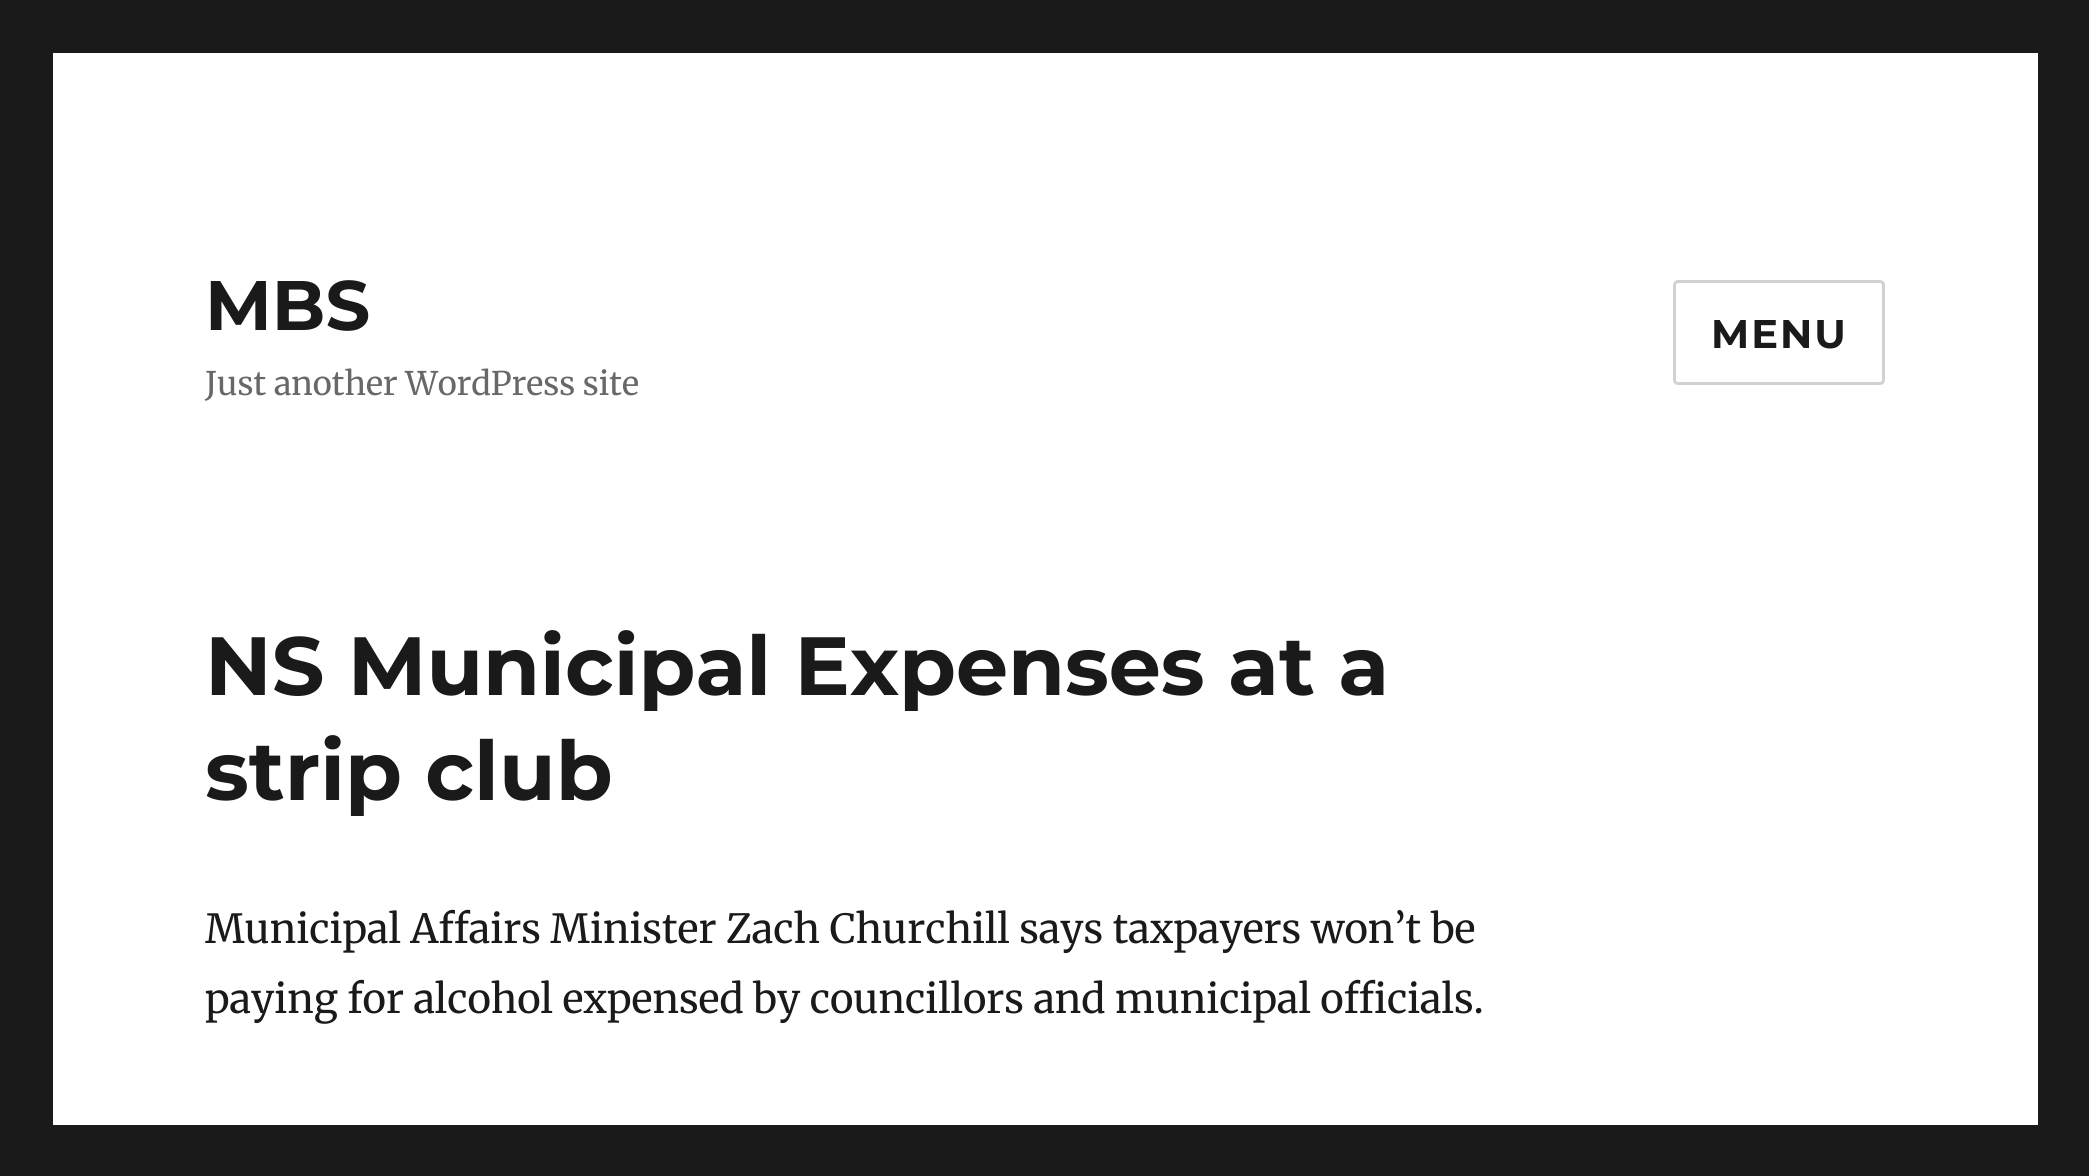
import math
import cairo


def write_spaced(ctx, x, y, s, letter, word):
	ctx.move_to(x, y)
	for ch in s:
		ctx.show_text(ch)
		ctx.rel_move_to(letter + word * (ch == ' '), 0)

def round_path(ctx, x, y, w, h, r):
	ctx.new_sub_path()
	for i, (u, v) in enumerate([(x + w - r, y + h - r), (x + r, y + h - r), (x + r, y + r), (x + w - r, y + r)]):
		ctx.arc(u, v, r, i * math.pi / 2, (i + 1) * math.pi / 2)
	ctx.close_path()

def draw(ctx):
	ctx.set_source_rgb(0.102, 0.102, 0.102)
	ctx.paint()
	ctx.set_source_rgb(1, 1, 1)
	ctx.rectangle(53, 53, 1985, 1072)
	ctx.fill()
	ctx.select_font_face('Montserrat', cairo.FONT_SLANT_NORMAL, cairo.FONT_WEIGHT_BOLD)
	ctx.set_font_size(70)
	ctx.set_source_rgb(0.102, 0.102, 0.102)
	ctx.move_to(205, 330)
	ctx.show_text('MBS')
	ctx.select_font_face('Merriweather')
	ctx.set_font_size(32.5)
	ctx.set_source_rgb(0.408, 0.408, 0.408)
	ctx.move_to(205, 395)
	ctx.show_text('Just another WordPress site')
	round_path(ctx, 1674.5, 281.5, 209, 102, 3.5)
	ctx.set_source_rgb(0.82, 0.82, 0.82)
	ctx.set_line_width(3)
	ctx.stroke()
	ctx.select_font_face('Montserrat', cairo.FONT_SLANT_NORMAL, cairo.FONT_WEIGHT_BOLD)
	ctx.set_font_size(40)
	ctx.set_source_rgb(0.102, 0.102, 0.102)
	write_spaced(ctx, 1711, 348, 'MENU', 2, 0)
	ctx.set_font_size(82.5)
	ctx.move_to(205, 695)
	ctx.show_text('NS Municipal Expenses at a')
	ctx.move_to(205, 800)
	ctx.show_text('strip club')
	ctx.select_font_face('Merriweather')
	ctx.set_font_size(40)
	ctx.move_to(205, 943)
	ctx.show_text('Municipal Affairs Minister Zach Churchill says taxpayers won’t be')
	ctx.move_to(205, 1013)
	ctx.show_text('paying for alcohol expensed by councillors and municipal officials.')


surface = cairo.ImageSurface(cairo.FORMAT_RGB24, 2089, 1176)
ctx = cairo.Context(surface)
options = cairo.FontOptions()
options.set_hint_metrics(cairo.HINT_METRICS_OFF)
options.set_hint_style(cairo.HINT_STYLE_NONE)
ctx.set_font_options(options)
ctx.set_miter_limit(4)
draw(ctx)
surface.write_to_png('image.png')
